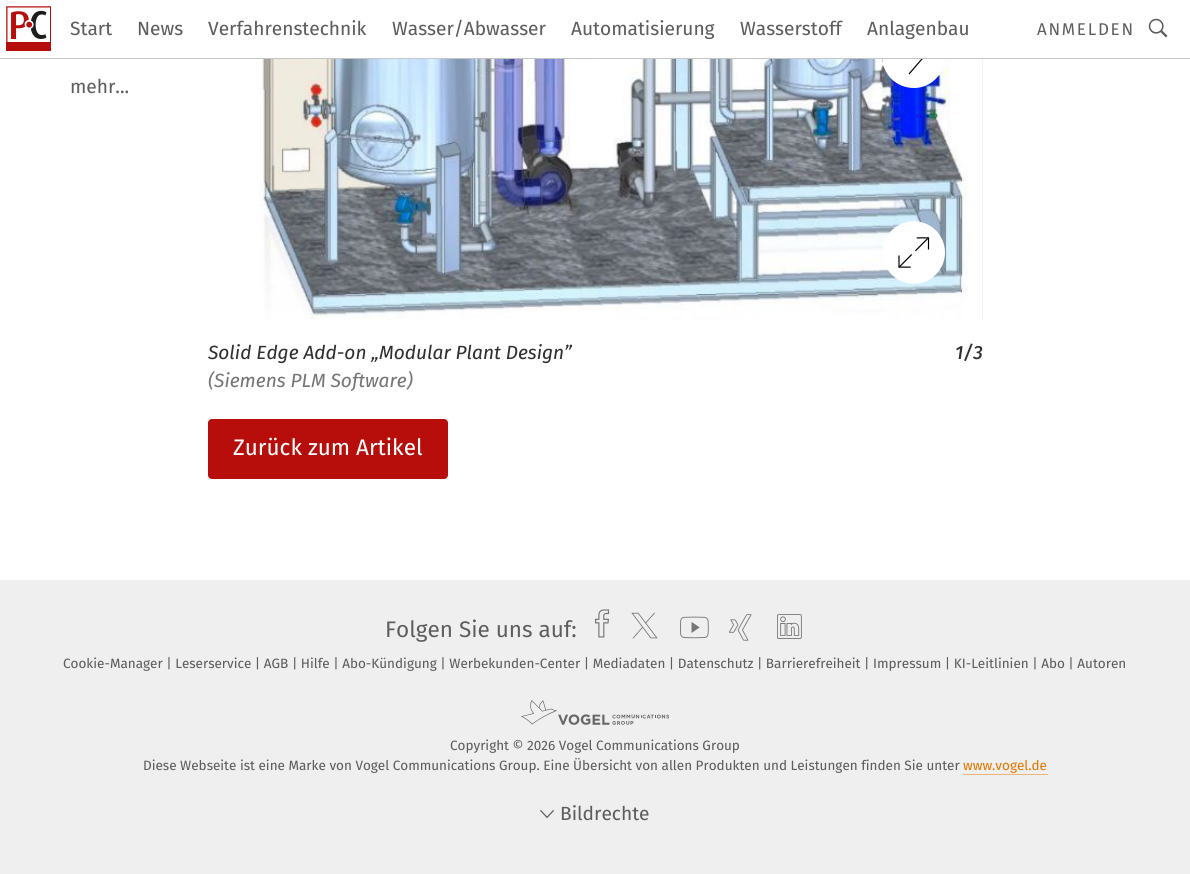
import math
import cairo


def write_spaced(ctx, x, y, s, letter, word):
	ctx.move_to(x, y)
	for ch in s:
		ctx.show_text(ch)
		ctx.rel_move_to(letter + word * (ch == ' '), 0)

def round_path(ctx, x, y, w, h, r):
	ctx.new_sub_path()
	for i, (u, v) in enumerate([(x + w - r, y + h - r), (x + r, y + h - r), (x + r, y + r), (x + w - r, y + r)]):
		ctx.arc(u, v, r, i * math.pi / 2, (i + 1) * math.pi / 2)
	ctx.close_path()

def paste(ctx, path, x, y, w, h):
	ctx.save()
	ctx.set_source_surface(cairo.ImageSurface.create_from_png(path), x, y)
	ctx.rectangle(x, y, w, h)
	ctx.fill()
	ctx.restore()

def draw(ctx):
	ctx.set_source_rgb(1, 1, 1)
	ctx.paint()
	ctx.set_source_rgb(0.937, 0.937, 0.937)
	ctx.rectangle(982, 59, 1, 262)
	ctx.fill()
	paste(ctx, 'media/3.png', 208, 59, 775, 262)
	ctx.save()
	ctx.rectangle(883, 25, 62, 63)
	ctx.clip()
	ctx.set_source_rgb(1, 1, 1)
	ctx.new_path()
	ctx.move_to(914, 25)
	ctx.curve_to(896, 25, 882, 39, 882, 56)
	ctx.curve_to(882, 74, 896, 88, 914, 88)
	ctx.curve_to(931, 88, 945, 74, 945, 56)
	ctx.curve_to(945, 39, 931, 25, 914, 25)
	ctx.fill()
	ctx.restore()
	ctx.new_path()
	ctx.move_to(909, 74)
	ctx.line_to(924.5, 56)
	ctx.line_to(909, 39)
	ctx.set_source_rgb(0, 0, 0)
	ctx.set_line_width(1.2)
	ctx.stroke()
	ctx.set_source_rgb(1, 1, 1)
	ctx.rectangle(908, 38, 18, 20)
	ctx.fill()
	ctx.set_source_rgb(0.776, 0.776, 0.776)
	ctx.rectangle(0, 58, 1190, 1)
	ctx.fill()
	paste(ctx, 'media/1.png', 6, 6, 45, 45)
	ctx.select_font_face('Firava')
	ctx.set_font_size(19.1)
	ctx.set_source_rgb(0.369, 0.369, 0.369)
	for x, y, s in [
		(70, 35, 'Start'),
		(137, 35, 'News'),
		(208, 35, 'Verfahrenstechnik'),
		(392, 35, 'Wasser/Abwasser'),
		(571, 35, 'Automatisierung'),
		(740, 35, 'Wasserstoff'),
		(867, 35, 'Anlagenbau'),
		(70, 93, 'mehr...'),
	]:
		ctx.move_to(x, y)
		ctx.show_text(s)
	ctx.select_font_face('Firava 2')
	ctx.set_font_size(17)
	write_spaced(ctx, 1037, 35, 'ANMELDEN', 1.75, 0)
	paste(ctx, 'media/2.png', 1148, 18, 20, 20)
	paste(ctx, 'media/4.png', 883, 221, 62, 63)
	ctx.select_font_face('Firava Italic', cairo.FONT_SLANT_ITALIC)
	ctx.set_font_size(19.1)
	ctx.set_source_rgb(0.188, 0.188, 0.188)
	ctx.move_to(208, 359)
	ctx.show_text('Solid Edge Add-on „Modular Plant Design”')
	ctx.set_source_rgb(0.463, 0.463, 0.463)
	ctx.move_to(208, 387)
	ctx.show_text('(Siemens PLM Software)')
	ctx.select_font_face('Firava Italic Medium', cairo.FONT_SLANT_ITALIC)
	ctx.set_source_rgb(0.188, 0.188, 0.188)
	ctx.move_to(955, 359)
	ctx.show_text('1/3')
	ctx.set_source_rgb(0.718, 0.055, 0.047)
	round_path(ctx, 208, 419, 240, 60, 4)
	ctx.fill()
	ctx.select_font_face('Firava')
	ctx.set_font_size(22.5)
	ctx.set_source_rgb(1, 1, 1)
	ctx.move_to(233, 455)
	ctx.show_text('Zurück zum Artikel')
	ctx.set_source_rgb(0.937, 0.937, 0.937)
	ctx.rectangle(0, 580, 1190, 294)
	ctx.fill()
	ctx.select_font_face('Firava 2')
	ctx.set_source_rgb(0.369, 0.369, 0.369)
	ctx.move_to(385, 637)
	ctx.show_text('Folgen Sie uns auf:')
	paste(ctx, 'media/5.png', 595, 609, 15, 29)
	paste(ctx, 'media/6.png', 631, 612, 27, 27)
	paste(ctx, 'media/7.png', 680, 616, 29, 23)
	paste(ctx, 'media/8.png', 729, 614, 23, 27)
	paste(ctx, 'media/9.png', 777, 614, 25, 25)
	ctx.select_font_face('Firava')
	ctx.set_font_size(13.5)
	ctx.move_to(63, 668)
	ctx.show_text('Cookie-Manager | Leserservice | AGB | Hilfe | Abo-Kündigung | Werbekunden-Center | Mediadaten | Datenschutz | Barrierefreiheit | Impressum | KI-Leitlinien | Abo | Autoren')
	paste(ctx, 'media/10.png', 521, 700, 149, 25)
	ctx.move_to(450, 750)
	ctx.show_text('Copyright © 2026 Vogel Communications Group')
	ctx.move_to(143, 770)
	ctx.show_text('Diese Webseite ist eine Marke von Vogel Communications Group. Eine Übersicht von allen Produkten und Leistungen finden Sie unter')
	ctx.set_source_rgb(0.898, 0.471, 0)
	ctx.move_to(963, 770)
	ctx.show_text('www.vogel.de')
	ctx.set_source_rgb(0.918, 0.706, 0.471)
	ctx.rectangle(963, 774, 85, 1)
	ctx.fill()
	paste(ctx, 'media/11.png', 540, 810, 14, 9)
	ctx.set_font_size(19.1)
	ctx.set_source_rgb(0.369, 0.369, 0.369)
	ctx.move_to(560, 820)
	ctx.show_text('Bildrechte')


surface = cairo.ImageSurface(cairo.FORMAT_RGB24, 1190, 874)
ctx = cairo.Context(surface)
options = cairo.FontOptions()
options.set_hint_metrics(cairo.HINT_METRICS_OFF)
options.set_hint_style(cairo.HINT_STYLE_NONE)
ctx.set_font_options(options)
ctx.set_miter_limit(4)
draw(ctx)
surface.write_to_png('image.png')
